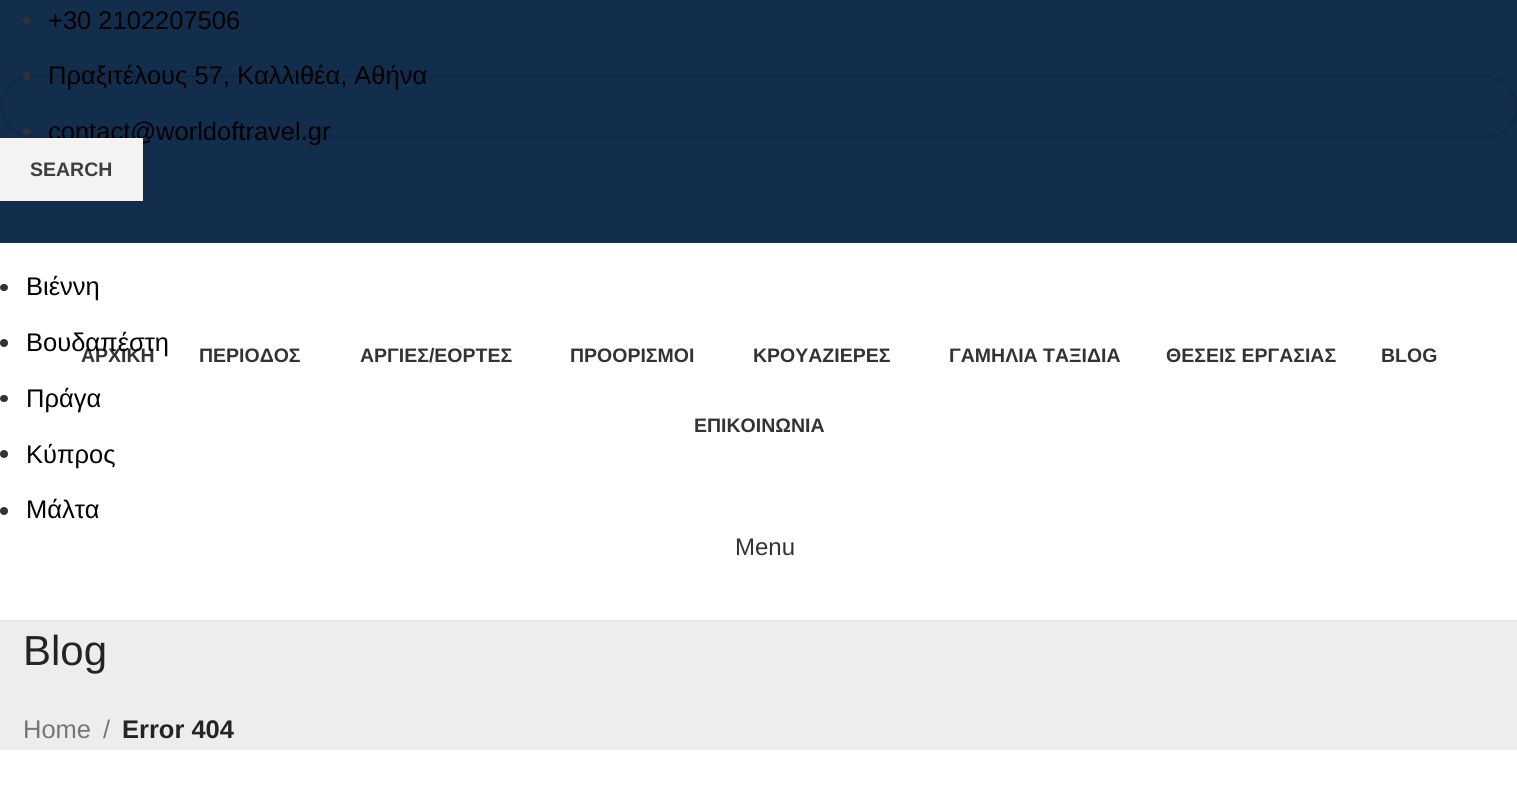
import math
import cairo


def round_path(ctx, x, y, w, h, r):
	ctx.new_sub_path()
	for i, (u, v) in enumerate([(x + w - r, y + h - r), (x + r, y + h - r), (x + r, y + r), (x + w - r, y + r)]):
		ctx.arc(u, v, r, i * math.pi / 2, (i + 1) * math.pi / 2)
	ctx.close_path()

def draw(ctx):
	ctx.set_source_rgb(1, 1, 1)
	ctx.paint()
	ctx.set_source_rgb(0.078, 0.176, 0.298)
	ctx.rectangle(0, 0, 1517, 243)
	ctx.fill()
	ctx.set_source_rgb(0.2, 0.2, 0.2)
	ctx.arc(26.5, 20.5, 3.5, 0, 2 * math.pi)
	ctx.fill()
	ctx.select_font_face('Liberation Sans')
	ctx.set_font_size(25.5)
	ctx.set_source_rgb(0, 0, 0)
	ctx.move_to(48, 29)
	ctx.show_text('+30 2102207506')
	ctx.set_source_rgb(0.2, 0.2, 0.2)
	round_path(ctx, 23, 72, 7, 8, 3.5)
	ctx.fill()
	ctx.set_source_rgb(0, 0, 0)
	ctx.move_to(48, 84)
	ctx.show_text('Πραξιτέλους 57, Καλλιθέα, Αθήνα')
	ctx.set_source_rgb(0.2, 0.2, 0.2)
	ctx.new_path()
	ctx.arc(26.5, 131.5, 3.5, 0, 2 * math.pi)
	ctx.fill()
	ctx.set_source_rgb(0, 0, 0)
	ctx.move_to(48, 140)
	ctx.show_text('contact@worldoftravel.gr')
	ctx.set_source_rgb(0.902, 0.902, 0.902)
	ctx.rectangle(0, 620, 1517, 1)
	ctx.fill()
	ctx.select_font_face('Liberation Sans', cairo.FONT_SLANT_NORMAL, cairo.FONT_WEIGHT_BOLD)
	ctx.set_font_size(19.5)
	ctx.set_source_rgb(0.2, 0.2, 0.2)
	for x, y, s in [
		(81, 362, 'ΑΡΧΙΚΗ'),
		(199, 362, 'ΠΕΡΙΟΔΟΣ'),
		(360, 362, 'ΑΡΓΙΕΣ/ΕΟΡΤΕΣ'),
		(570, 362, 'ΠΡΟΟΡΙΣΜΟΙ'),
		(753, 362, 'ΚΡΟΥΑΖΙΕΡΕΣ'),
		(949, 362, 'ΓΑΜΗΛΙΑ ΤΑΞΙΔΙΑ'),
		(1166, 362, 'ΘΕΣΕΙΣ ΕΡΓΑΣΙΑΣ'),
		(1381, 362, 'BLOG'),
		(694, 432, 'ΕΠΙΚΟΙΝΩΝΙΑ'),
	]:
		ctx.move_to(x, y)
		ctx.show_text(s)
	ctx.select_font_face('Liberation Sans')
	ctx.set_font_size(24)
	ctx.move_to(735, 555)
	ctx.show_text('Menu')
	ctx.set_source_rgb(0.929, 0.929, 0.929)
	ctx.rectangle(0, 621, 1517, 129)
	ctx.fill()
	ctx.set_font_size(42)
	ctx.set_source_rgb(0.141, 0.141, 0.141)
	ctx.move_to(23, 665)
	ctx.show_text('Blog')
	ctx.set_font_size(25.5)
	ctx.set_source_rgb(0.463, 0.463, 0.463)
	ctx.move_to(23, 738)
	ctx.show_text('Home')
	ctx.move_to(103, 738)
	ctx.show_text('/')
	ctx.select_font_face('Liberation Sans', cairo.FONT_SLANT_NORMAL, cairo.FONT_WEIGHT_BOLD)
	ctx.set_source_rgb(0.141, 0.141, 0.141)
	ctx.move_to(122, 738)
	ctx.show_text('Error 404')
	round_path(ctx, 1.5, 76.5, 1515, 60, 30)
	ctx.set_source_rgba(0, 0, 0, 0.1)
	ctx.set_line_width(3)
	ctx.stroke()
	ctx.set_source_rgb(0.953, 0.953, 0.953)
	ctx.rectangle(0, 138, 143, 63)
	ctx.fill()
	ctx.set_font_size(19.5)
	ctx.set_source_rgb(0.243, 0.243, 0.243)
	ctx.move_to(30, 176)
	ctx.show_text('SEARCH')
	ctx.set_source_rgb(0.2, 0.2, 0.2)
	round_path(ctx, 0, 284, 8, 7, 3.5)
	ctx.fill()
	ctx.select_font_face('Liberation Sans')
	ctx.set_font_size(25.5)
	ctx.set_source_rgb(0, 0, 0)
	ctx.move_to(26, 295)
	ctx.show_text('Βιέννη')
	ctx.set_source_rgb(0.2, 0.2, 0.2)
	ctx.new_path()
	ctx.arc(4, 343, 4, 0, 2 * math.pi)
	ctx.fill()
	ctx.set_source_rgb(0, 0, 0)
	ctx.move_to(26, 351)
	ctx.show_text('Βουδαπέστη')
	ctx.set_source_rgb(0.2, 0.2, 0.2)
	round_path(ctx, 0, 395, 8, 7, 3.5)
	ctx.fill()
	ctx.set_source_rgb(0, 0, 0)
	ctx.move_to(26, 407)
	ctx.show_text('Πράγα')
	ctx.set_source_rgb(0.2, 0.2, 0.2)
	ctx.new_path()
	ctx.arc(4, 454, 4, 0, 2 * math.pi)
	ctx.fill()
	ctx.set_source_rgb(0, 0, 0)
	ctx.move_to(26, 463)
	ctx.show_text('Κύπρος')
	ctx.set_source_rgb(0.2, 0.2, 0.2)
	ctx.new_path()
	ctx.arc(4, 511, 4, 0, 2 * math.pi)
	ctx.fill()
	ctx.set_source_rgb(0, 0, 0)
	ctx.move_to(26, 518)
	ctx.show_text('Μάλτα')


surface = cairo.ImageSurface(cairo.FORMAT_RGB24, 1517, 787)
ctx = cairo.Context(surface)
options = cairo.FontOptions()
options.set_hint_metrics(cairo.HINT_METRICS_OFF)
options.set_hint_style(cairo.HINT_STYLE_NONE)
ctx.set_font_options(options)
ctx.set_miter_limit(4)
draw(ctx)
surface.write_to_png('image.png')
